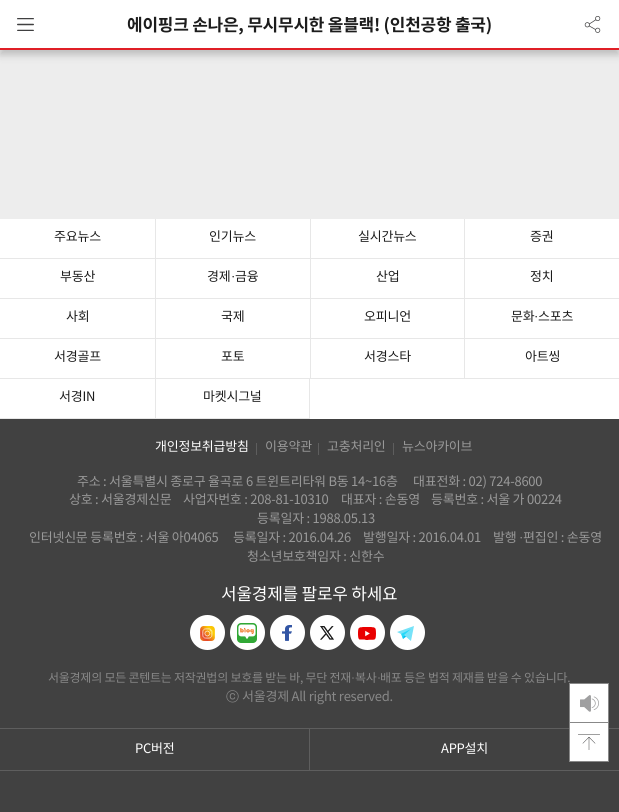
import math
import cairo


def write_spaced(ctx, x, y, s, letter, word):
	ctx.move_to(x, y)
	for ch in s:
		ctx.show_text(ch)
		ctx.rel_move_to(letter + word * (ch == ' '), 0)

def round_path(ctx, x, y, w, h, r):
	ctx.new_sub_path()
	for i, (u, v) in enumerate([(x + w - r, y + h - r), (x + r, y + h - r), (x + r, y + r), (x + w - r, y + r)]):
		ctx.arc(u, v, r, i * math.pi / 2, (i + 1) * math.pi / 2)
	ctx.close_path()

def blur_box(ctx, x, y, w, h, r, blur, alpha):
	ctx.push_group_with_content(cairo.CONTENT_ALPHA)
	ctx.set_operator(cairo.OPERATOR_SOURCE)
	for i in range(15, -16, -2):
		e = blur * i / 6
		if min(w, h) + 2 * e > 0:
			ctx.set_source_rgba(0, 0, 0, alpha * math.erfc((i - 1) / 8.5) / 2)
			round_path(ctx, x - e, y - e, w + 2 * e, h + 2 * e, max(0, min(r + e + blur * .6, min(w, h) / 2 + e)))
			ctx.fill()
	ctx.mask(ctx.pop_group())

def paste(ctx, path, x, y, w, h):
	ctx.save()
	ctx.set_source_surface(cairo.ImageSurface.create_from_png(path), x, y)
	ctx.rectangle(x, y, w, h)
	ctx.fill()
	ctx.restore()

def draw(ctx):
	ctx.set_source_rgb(0.929, 0.929, 0.929)
	ctx.paint()
	ctx.set_source_rgb(0, 0, 0)
	blur_box(ctx, 0, 5, 619, 50, 0, 4, 0.2)
	ctx.set_source_rgb(1, 1, 1)
	ctx.rectangle(0, 0, 619, 48)
	ctx.fill()
	paste(ctx, 'media/1.png', 17, 18, 17, 13)
	ctx.select_font_face('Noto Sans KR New', cairo.FONT_SLANT_NORMAL, cairo.FONT_WEIGHT_BOLD)
	ctx.set_font_size(17)
	ctx.set_source_rgb(0.11, 0.11, 0.11)
	write_spaced(ctx, 127, 31, '에이핑크 손나은, 무시무시한 올블랙! (인천공항 출국)', -0.25, 0)
	paste(ctx, 'media/2.png', 584, 16, 17, 17)
	ctx.set_source_rgb(0.878, 0.122, 0.149)
	ctx.rectangle(0, 48, 619, 2)
	ctx.fill()
	ctx.set_source_rgb(0.255, 0.255, 0.255)
	ctx.rectangle(0, 419, 619, 393)
	ctx.fill()
	ctx.set_source_rgb(1, 1, 1)
	ctx.rectangle(0, 219, 619, 200)
	ctx.fill()
	ctx.set_source_rgb(0.906, 0.906, 0.906)
	ctx.rectangle(0, 258, 619, 1)
	ctx.fill()
	ctx.select_font_face('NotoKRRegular')
	ctx.set_font_size(13)
	ctx.set_source_rgb(0.11, 0.11, 0.11)
	write_spaced(ctx, 54, 241, '주요뉴스', -0.25, 0)
	ctx.set_source_rgb(0.906, 0.906, 0.906)
	ctx.rectangle(155, 219, 1, 40)
	ctx.fill()
	ctx.set_source_rgb(0.11, 0.11, 0.11)
	write_spaced(ctx, 209, 241, '인기뉴스', -0.25, 0)
	ctx.set_source_rgb(0.906, 0.906, 0.906)
	ctx.rectangle(310, 219, 1, 40)
	ctx.fill()
	ctx.set_source_rgb(0.11, 0.11, 0.11)
	write_spaced(ctx, 358, 241, '실시간뉴스', -0.25, 0)
	ctx.set_source_rgb(0.906, 0.906, 0.906)
	ctx.rectangle(464, 219, 1, 40)
	ctx.fill()
	ctx.set_source_rgb(0.11, 0.11, 0.11)
	write_spaced(ctx, 530, 241, '증권', -0.25, 0)
	ctx.set_source_rgb(0.906, 0.906, 0.906)
	ctx.rectangle(0, 298, 619, 1)
	ctx.fill()
	ctx.set_source_rgb(0.11, 0.11, 0.11)
	write_spaced(ctx, 60, 281, '부동산', -0.25, 0)
	ctx.set_source_rgb(0.906, 0.906, 0.906)
	ctx.rectangle(155, 259, 1, 40)
	ctx.fill()
	ctx.set_source_rgb(0.11, 0.11, 0.11)
	write_spaced(ctx, 207, 281, '경제', -0.25, 0)
	ctx.select_font_face('Liberation Serif')
	write_spaced(ctx, 231, 281, '·', -0.25, 0)
	ctx.select_font_face('NotoKRRegular')
	write_spaced(ctx, 235, 281, '금융', -0.25, 0)
	ctx.set_source_rgb(0.906, 0.906, 0.906)
	ctx.rectangle(310, 259, 1, 40)
	ctx.fill()
	ctx.set_source_rgb(0.11, 0.11, 0.11)
	write_spaced(ctx, 376, 281, '산업', -0.25, 0)
	ctx.set_source_rgb(0.906, 0.906, 0.906)
	ctx.rectangle(464, 259, 1, 40)
	ctx.fill()
	ctx.set_source_rgb(0.11, 0.11, 0.11)
	write_spaced(ctx, 530, 281, '정치', -0.25, 0)
	ctx.set_source_rgb(0.906, 0.906, 0.906)
	ctx.rectangle(0, 338, 619, 1)
	ctx.fill()
	ctx.set_source_rgb(0.11, 0.11, 0.11)
	write_spaced(ctx, 66, 321, '사회', -0.25, 0)
	ctx.set_source_rgb(0.906, 0.906, 0.906)
	ctx.rectangle(155, 299, 1, 40)
	ctx.fill()
	ctx.set_source_rgb(0.11, 0.11, 0.11)
	write_spaced(ctx, 221, 321, '국제', -0.25, 0)
	ctx.set_source_rgb(0.906, 0.906, 0.906)
	ctx.rectangle(310, 299, 1, 40)
	ctx.fill()
	ctx.set_source_rgb(0.11, 0.11, 0.11)
	write_spaced(ctx, 364, 321, '오피니언', -0.25, 0)
	ctx.set_source_rgb(0.906, 0.906, 0.906)
	ctx.rectangle(464, 299, 1, 40)
	ctx.fill()
	ctx.set_source_rgb(0.11, 0.11, 0.11)
	write_spaced(ctx, 511, 321, '문화', -0.25, 0)
	ctx.select_font_face('Liberation Serif')
	write_spaced(ctx, 534, 321, '·', -0.25, 0)
	ctx.select_font_face('NotoKRRegular')
	write_spaced(ctx, 538, 321, '스포츠', -0.25, 0)
	ctx.set_source_rgb(0.906, 0.906, 0.906)
	ctx.rectangle(0, 378, 619, 1)
	ctx.fill()
	ctx.set_source_rgb(0.11, 0.11, 0.11)
	write_spaced(ctx, 54, 361, '서경골프', -0.25, 0)
	ctx.set_source_rgb(0.906, 0.906, 0.906)
	ctx.rectangle(155, 339, 1, 40)
	ctx.fill()
	ctx.set_source_rgb(0.11, 0.11, 0.11)
	write_spaced(ctx, 221, 361, '포토', -0.25, 0)
	ctx.set_source_rgb(0.906, 0.906, 0.906)
	ctx.rectangle(310, 339, 1, 40)
	ctx.fill()
	ctx.set_source_rgb(0.11, 0.11, 0.11)
	write_spaced(ctx, 364, 361, '서경스타', -0.25, 0)
	ctx.set_source_rgb(0.906, 0.906, 0.906)
	ctx.rectangle(464, 339, 1, 40)
	ctx.fill()
	ctx.set_source_rgb(0.11, 0.11, 0.11)
	write_spaced(ctx, 525, 361, '아트씽', -0.25, 0)
	ctx.set_source_rgb(0.906, 0.906, 0.906)
	ctx.rectangle(0, 418, 155, 1)
	ctx.fill()
	ctx.set_source_rgb(0.11, 0.11, 0.11)
	write_spaced(ctx, 59, 401, '서경IN', -0.25, 0)
	ctx.set_source_rgb(0.906, 0.906, 0.906)
	ctx.rectangle(309, 379, 1, 40)
	ctx.rectangle(155, 418, 155, 1)
	ctx.rectangle(155, 379, 1, 40)
	ctx.fill()
	ctx.set_source_rgb(0.11, 0.11, 0.11)
	write_spaced(ctx, 203, 401, '마켓시그널', -0.25, 0)
	ctx.set_source_rgb(1, 1, 1)
	write_spaced(ctx, 155, 451, '개인정보취급방침', -0.25, 0)
	ctx.set_source_rgb(0.369, 0.369, 0.369)
	ctx.rectangle(256, 443, 1, 12)
	ctx.fill()
	ctx.set_source_rgb(0.6, 0.6, 0.6)
	write_spaced(ctx, 265, 451, '이용약관', -0.25, 0)
	ctx.set_source_rgb(0.369, 0.369, 0.369)
	ctx.rectangle(318, 443, 1, 12)
	ctx.fill()
	ctx.set_source_rgb(0.6, 0.6, 0.6)
	write_spaced(ctx, 327, 451, '고충처리인', -0.25, 0)
	ctx.set_source_rgb(0.369, 0.369, 0.369)
	ctx.rectangle(393, 443, 1, 12)
	ctx.fill()
	ctx.set_source_rgb(0.6, 0.6, 0.6)
	for x, y, s in [
		(402, 451, '뉴스아카이브'),
		(77, 486, '주소 : 서울특별시 종로구 율곡로 6 트윈트리타워 B동 14~16층'),
		(413, 486, '대표전화 : 02) 724-8600'),
		(69, 504, '상호 : 서울경제신문'),
		(183, 504, '사업자번호 : 208-81-10310'),
		(341, 504, '대표자 : 손동영'),
		(431, 504, '등록번호 : 서울 가 00224'),
		(257, 523, '등록일자 : 1988.05.13'),
		(29, 542, '인터넷신문 등록번호 : 서울 아04065'),
		(233, 542, '등록일자 : 2016.04.26'),
		(363, 542, '발행일자 : 2016.04.01'),
		(493, 542, '발행'),
	]:
		write_spaced(ctx, x, y, s, -0.25, 0)
	ctx.select_font_face('Liberation Serif')
	write_spaced(ctx, 519, 542, '·', -0.25, 0)
	ctx.select_font_face('NotoKRRegular')
	write_spaced(ctx, 523, 542, '편집인 : 손동영', -0.25, 0)
	write_spaced(ctx, 247, 561, '청소년보호책임자 : 신한수', -0.25, 0)
	ctx.set_font_size(17)
	ctx.set_source_rgb(1, 1, 1)
	write_spaced(ctx, 221, 600, '서울경제를 팔로우 하세요', -0.25, 0)
	ctx.new_path()
	ctx.arc(207.5, 632.5, 17.5, 0, 2 * math.pi)
	ctx.fill()
	paste(ctx, 'media/3.png', 200, 626, 15, 15)
	ctx.arc(247.5, 632.5, 17.5, 0, 2 * math.pi)
	ctx.fill()
	paste(ctx, 'media/4.png', 237, 623, 20, 20)
	ctx.arc(287.5, 632.5, 17.5, 0, 2 * math.pi)
	ctx.fill()
	paste(ctx, 'media/5.png', 282, 625, 10, 16)
	ctx.arc(327.5, 632.5, 17.5, 0, 2 * math.pi)
	ctx.fill()
	paste(ctx, 'media/6.png', 320, 626, 14, 14)
	ctx.arc(367.5, 632.5, 17.5, 0, 2 * math.pi)
	ctx.fill()
	paste(ctx, 'media/7.png', 358, 627, 18, 13)
	ctx.arc(407.5, 632.5, 17.5, 0, 2 * math.pi)
	ctx.fill()
	paste(ctx, 'media/8.png', 397, 626, 17, 15)
	ctx.set_font_size(12)
	ctx.set_source_rgb(0.533, 0.533, 0.533)
	write_spaced(ctx, 48, 682, '서울경제의 모든 콘텐트는 저작권법의 보호를 받는 바, 무단 전재', -0.25, 0)
	ctx.select_font_face('Liberation Serif')
	write_spaced(ctx, 351, 682, '·', -0.25, 0)
	ctx.select_font_face('NotoKRRegular')
	write_spaced(ctx, 355, 682, '복사', -0.25, 0)
	ctx.select_font_face('Liberation Serif')
	write_spaced(ctx, 377, 682, '·', -0.25, 0)
	ctx.select_font_face('NotoKRRegular')
	write_spaced(ctx, 380, 682, '배포 등은 법적 제재를 받을 수 있습니다.', -0.25, 0)
	ctx.select_font_face('WenQuanYi Zen Hei Medium')
	ctx.set_font_size(13)
	write_spaced(ctx, 226, 701, 'ⓒ', -0.25, 0)
	ctx.select_font_face('NotoKRRegular')
	write_spaced(ctx, 242, 701, '서울경제 All right reserved.', -0.25, 0)
	ctx.set_source_rgb(0.369, 0.369, 0.369)
	ctx.rectangle(0, 770, 619, 1)
	ctx.rectangle(0, 728, 619, 1)
	ctx.rectangle(309, 728, 1, 42)
	ctx.fill()
	ctx.set_source_rgb(1, 1, 1)
	write_spaced(ctx, 135, 753, 'PC버전', -0.25, 0)
	write_spaced(ctx, 441, 753, 'APP설치', -0.25, 0)
	ctx.rectangle(570, 684, 38, 38)
	ctx.fill()
	paste(ctx, 'media/9.png', 580, 695, 19, 17)
	ctx.rectangle(569.5, 683.5, 39, 39)
	ctx.set_source_rgb(0.533, 0.533, 0.533)
	ctx.set_line_width(1)
	ctx.stroke()
	ctx.set_source_rgb(1, 1, 1)
	ctx.rectangle(570, 723, 38, 38)
	ctx.fill()
	paste(ctx, 'media/10.png', 578, 734, 22, 16)
	ctx.rectangle(569.5, 722.5, 39, 39)
	ctx.set_source_rgb(0.533, 0.533, 0.533)
	ctx.stroke()


surface = cairo.ImageSurface(cairo.FORMAT_RGB24, 619, 812)
ctx = cairo.Context(surface)
options = cairo.FontOptions()
options.set_hint_metrics(cairo.HINT_METRICS_OFF)
options.set_hint_style(cairo.HINT_STYLE_NONE)
ctx.set_font_options(options)
ctx.set_miter_limit(4)
draw(ctx)
surface.write_to_png('image.png')
